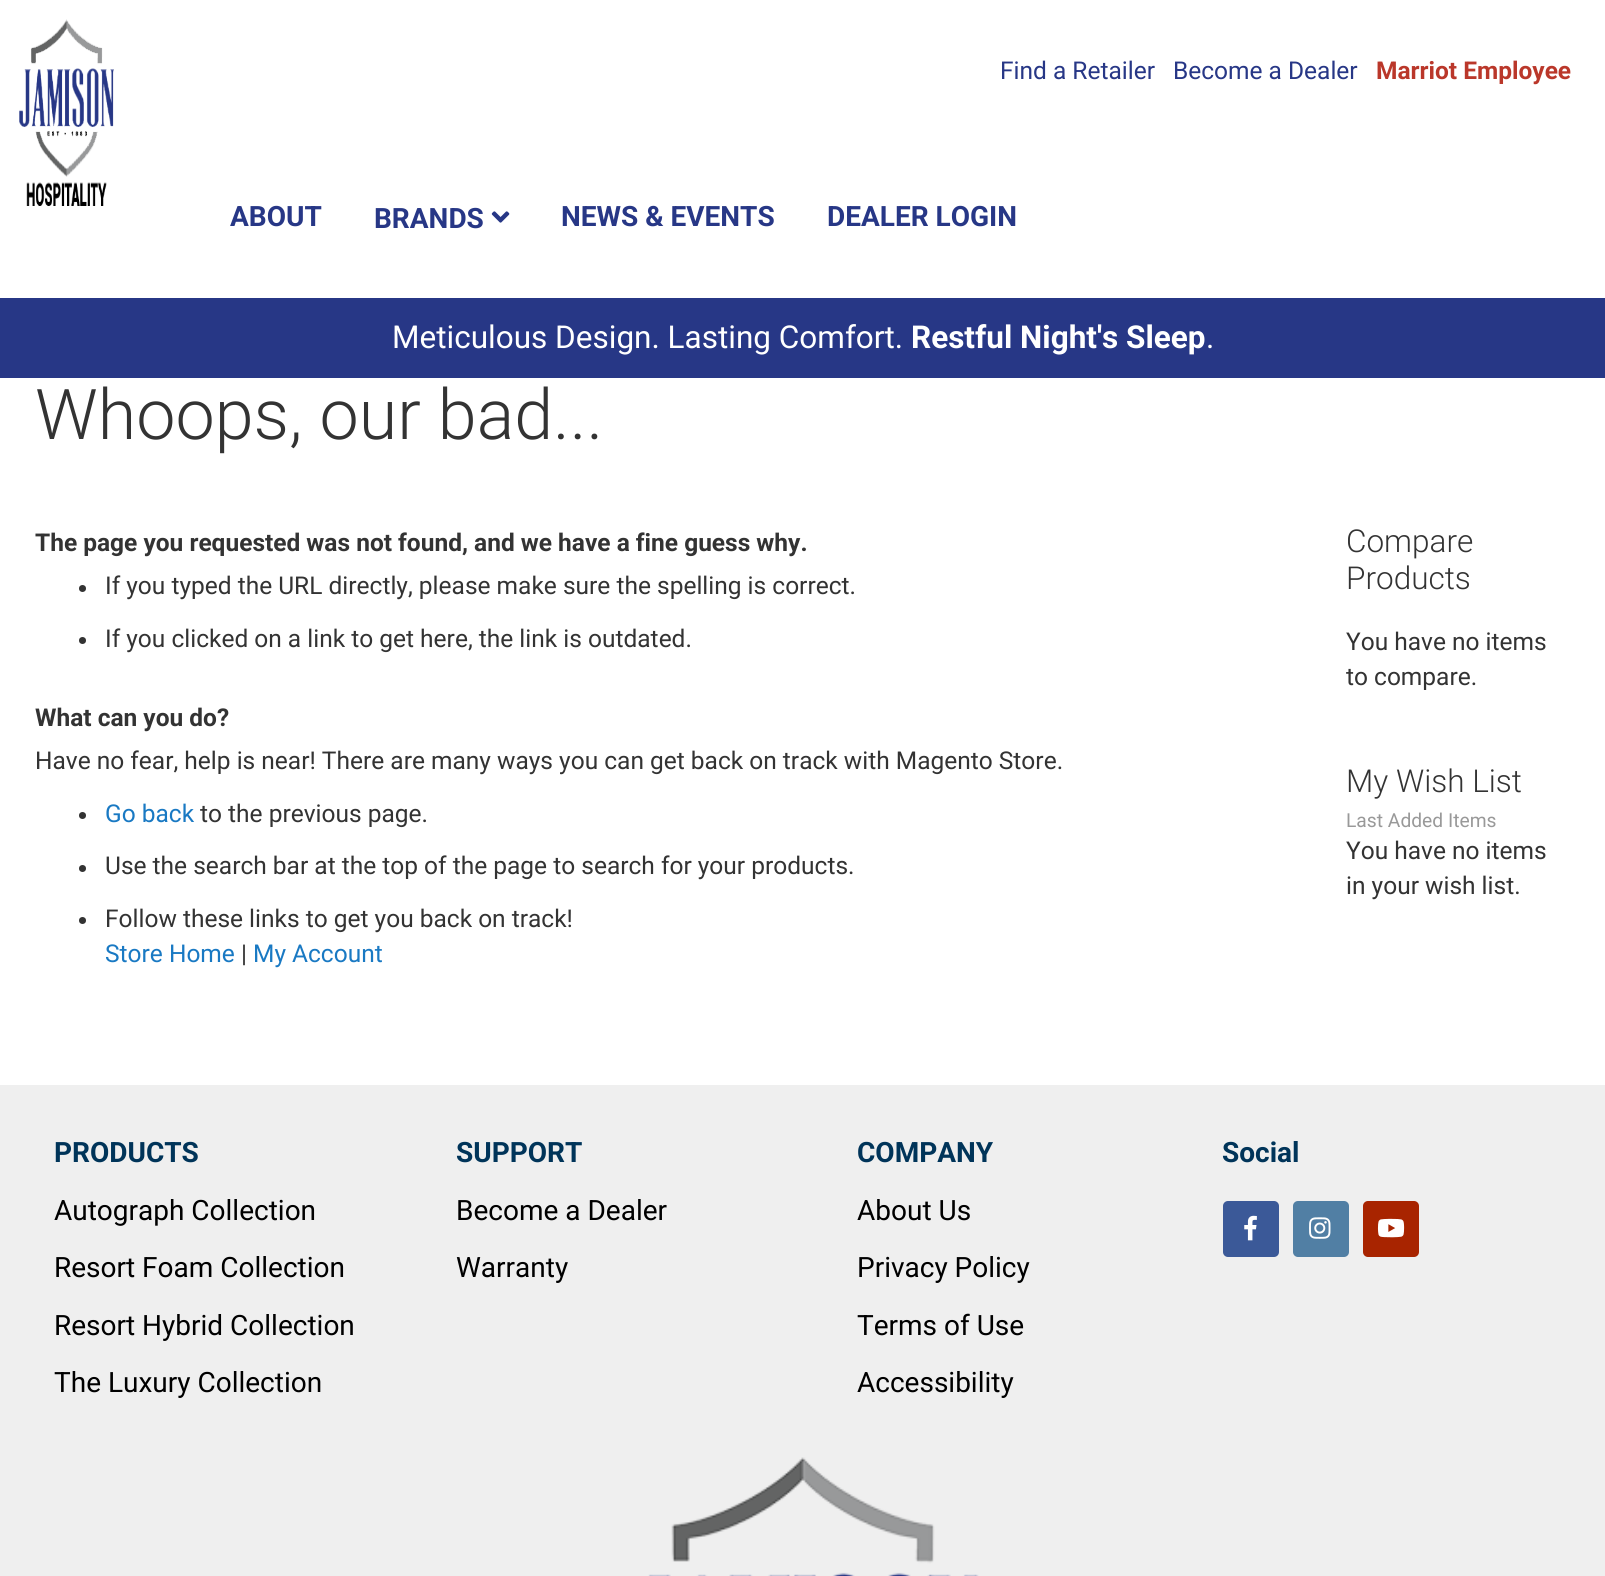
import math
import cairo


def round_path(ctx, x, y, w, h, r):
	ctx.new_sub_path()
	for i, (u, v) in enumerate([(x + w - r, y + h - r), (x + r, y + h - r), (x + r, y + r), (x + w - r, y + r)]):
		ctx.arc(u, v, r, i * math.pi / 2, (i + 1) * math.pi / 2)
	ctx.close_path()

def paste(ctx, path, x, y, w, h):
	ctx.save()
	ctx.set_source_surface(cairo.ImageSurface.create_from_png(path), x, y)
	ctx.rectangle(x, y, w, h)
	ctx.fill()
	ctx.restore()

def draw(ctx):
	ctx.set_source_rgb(1, 1, 1)
	ctx.paint()
	paste(ctx, 'media/1.png', 19, 19, 95, 187)
	ctx.select_font_face('Roboto')
	ctx.set_font_size(24.5)
	ctx.set_source_rgb(0.153, 0.216, 0.525)
	ctx.move_to(1000, 79)
	ctx.show_text('Find a Retailer')
	ctx.move_to(1173, 79)
	ctx.show_text('Become a Dealer')
	ctx.select_font_face('Roboto', cairo.FONT_SLANT_NORMAL, cairo.FONT_WEIGHT_BOLD)
	ctx.set_source_rgb(0.729, 0.216, 0.165)
	ctx.move_to(1376, 79)
	ctx.show_text('Marriot Employee')
	ctx.set_font_size(28)
	ctx.set_source_rgb(0.153, 0.216, 0.525)
	ctx.move_to(230, 226)
	ctx.show_text('ABOUT')
	ctx.move_to(374, 228)
	ctx.show_text('BRANDS')
	paste(ctx, 'media/2.png', 491, 211, 19, 12)
	ctx.move_to(561, 226)
	ctx.show_text('NEWS & EVENTS')
	ctx.move_to(827, 226)
	ctx.show_text('DEALER LOGIN')
	ctx.rectangle(0, 298, 1605, 80)
	ctx.fill()
	ctx.select_font_face('Roboto')
	ctx.set_font_size(31.5)
	ctx.set_source_rgb(1, 1, 1)
	ctx.move_to(392, 348)
	ctx.show_text('Meticulous Design. Lasting Comfort.')
	ctx.select_font_face('Roboto', cairo.FONT_SLANT_NORMAL, cairo.FONT_WEIGHT_BOLD)
	ctx.move_to(911, 348)
	ctx.show_text('Restful Night\'s Sleep')
	ctx.select_font_face('Roboto')
	ctx.move_to(1206, 348)
	ctx.show_text('.')
	ctx.select_font_face('Roboto Light')
	ctx.set_font_size(70)
	ctx.set_source_rgb(0.2, 0.2, 0.2)
	ctx.move_to(35, 439)
	ctx.show_text('Whoops, our bad...')
	ctx.select_font_face('Roboto', cairo.FONT_SLANT_NORMAL, cairo.FONT_WEIGHT_BOLD)
	ctx.set_font_size(24.5)
	ctx.move_to(35, 551)
	ctx.show_text('The page you requested was not found, and we have a fine guess why.')
	ctx.new_path()
	ctx.arc(82.5, 588.5, 3.5, 0, 2 * math.pi)
	ctx.fill()
	ctx.select_font_face('Roboto')
	ctx.move_to(105, 594)
	ctx.show_text('If you typed the URL directly, please make sure the spelling is correct.')
	ctx.new_path()
	ctx.arc(82.5, 640.5, 3.5, 0, 2 * math.pi)
	ctx.fill()
	ctx.move_to(105, 647)
	ctx.show_text('If you clicked on a link to get here, the link is outdated.')
	ctx.select_font_face('Roboto', cairo.FONT_SLANT_NORMAL, cairo.FONT_WEIGHT_BOLD)
	ctx.move_to(35, 726)
	ctx.show_text('What can you do?')
	ctx.select_font_face('Roboto')
	ctx.move_to(35, 769)
	ctx.show_text('Have no fear, help is near! There are many ways you can get back on track with Magento Store.')
	ctx.new_path()
	ctx.arc(82.5, 815.5, 3.5, 0, 2 * math.pi)
	ctx.fill()
	ctx.set_source_rgb(0.098, 0.475, 0.765)
	ctx.move_to(105, 822)
	ctx.show_text('Go back')
	ctx.set_source_rgb(0.2, 0.2, 0.2)
	ctx.move_to(200, 822)
	ctx.show_text('to the previous page.')
	ctx.new_path()
	ctx.arc(82.5, 868.5, 3.5, 0, 2 * math.pi)
	ctx.fill()
	ctx.move_to(105, 874)
	ctx.show_text('Use the search bar at the top of the page to search for your products.')
	ctx.new_path()
	ctx.arc(82.5, 920.5, 3.5, 0, 2 * math.pi)
	ctx.fill()
	ctx.move_to(105, 927)
	ctx.show_text('Follow these links to get you back on track!')
	ctx.set_source_rgb(0.098, 0.475, 0.765)
	ctx.move_to(105, 962)
	ctx.show_text('Store Home')
	ctx.set_source_rgb(0.2, 0.2, 0.2)
	ctx.move_to(241, 962)
	ctx.show_text('|')
	ctx.set_source_rgb(0.098, 0.475, 0.765)
	ctx.move_to(253, 962)
	ctx.show_text('My Account')
	ctx.select_font_face('Roboto Light')
	ctx.set_font_size(31.5)
	ctx.set_source_rgb(0.2, 0.2, 0.2)
	ctx.move_to(1346, 552)
	ctx.show_text('Compare')
	ctx.move_to(1346, 589)
	ctx.show_text('Products')
	ctx.select_font_face('Roboto')
	ctx.set_font_size(24.5)
	ctx.move_to(1346, 650)
	ctx.show_text('You have no items')
	ctx.move_to(1346, 685)
	ctx.show_text('to compare.')
	ctx.select_font_face('Roboto Light')
	ctx.set_font_size(31.5)
	ctx.move_to(1346, 792)
	ctx.show_text('My Wish List')
	ctx.select_font_face('Roboto')
	ctx.set_font_size(19.25)
	ctx.set_source_rgb(0.6, 0.6, 0.6)
	ctx.move_to(1346, 827)
	ctx.show_text('Last Added Items')
	ctx.set_font_size(24.5)
	ctx.set_source_rgb(0.2, 0.2, 0.2)
	ctx.move_to(1346, 859)
	ctx.show_text('You have no items')
	ctx.move_to(1346, 894)
	ctx.show_text('in your wish list.')
	ctx.set_source_rgb(0.937, 0.937, 0.937)
	ctx.rectangle(0, 1085, 1605, 491)
	ctx.fill()
	ctx.select_font_face('Roboto', cairo.FONT_SLANT_NORMAL, cairo.FONT_WEIGHT_BOLD)
	ctx.set_font_size(28)
	ctx.set_source_rgb(0, 0.204, 0.349)
	ctx.move_to(54, 1162)
	ctx.show_text('PRODUCTS')
	ctx.select_font_face('Roboto')
	ctx.set_source_rgb(0, 0, 0)
	for x, y, s in [
		(54, 1220, 'Autograph Collection'),
		(54, 1277, 'Resort Foam Collection'),
		(54, 1335, 'Resort Hybrid Collection'),
		(54, 1392, 'The Luxury Collection'),
	]:
		ctx.move_to(x, y)
		ctx.show_text(s)
	ctx.select_font_face('Roboto', cairo.FONT_SLANT_NORMAL, cairo.FONT_WEIGHT_BOLD)
	ctx.set_source_rgb(0, 0.204, 0.349)
	ctx.move_to(456, 1162)
	ctx.show_text('SUPPORT')
	ctx.select_font_face('Roboto')
	ctx.set_source_rgb(0, 0, 0)
	ctx.move_to(456, 1220)
	ctx.show_text('Become a Dealer')
	ctx.move_to(456, 1277)
	ctx.show_text('Warranty')
	ctx.select_font_face('Roboto', cairo.FONT_SLANT_NORMAL, cairo.FONT_WEIGHT_BOLD)
	ctx.set_source_rgb(0, 0.204, 0.349)
	ctx.move_to(857, 1162)
	ctx.show_text('COMPANY')
	ctx.select_font_face('Roboto')
	ctx.set_source_rgb(0, 0, 0)
	for x, y, s in [
		(857, 1220, 'About Us'),
		(857, 1277, 'Privacy Policy'),
		(857, 1335, 'Terms of Use'),
		(857, 1392, 'Accessibility'),
	]:
		ctx.move_to(x, y)
		ctx.show_text(s)
	ctx.select_font_face('Roboto', cairo.FONT_SLANT_NORMAL, cairo.FONT_WEIGHT_BOLD)
	ctx.set_source_rgb(0, 0.204, 0.349)
	ctx.move_to(1222, 1162)
	ctx.show_text('Social')
	ctx.set_source_rgb(0.231, 0.349, 0.596)
	round_path(ctx, 1223, 1201, 56, 56, 5)
	ctx.fill()
	paste(ctx, 'media/3.png', 1244, 1215, 13, 26)
	ctx.set_source_rgb(0.318, 0.498, 0.643)
	round_path(ctx, 1293, 1201, 56, 56, 5)
	ctx.fill()
	paste(ctx, 'media/4.png', 1309, 1217, 22, 22)
	ctx.set_source_rgb(0.659, 0.141, 0)
	round_path(ctx, 1363, 1201, 56, 56, 5)
	ctx.fill()
	paste(ctx, 'media/5.png', 1377, 1218, 28, 20)
	paste(ctx, 'media/6.png', 648, 1457, 331, 119)


surface = cairo.ImageSurface(cairo.FORMAT_RGB24, 1605, 1576)
ctx = cairo.Context(surface)
options = cairo.FontOptions()
options.set_hint_metrics(cairo.HINT_METRICS_OFF)
options.set_hint_style(cairo.HINT_STYLE_NONE)
ctx.set_font_options(options)
ctx.set_miter_limit(4)
draw(ctx)
surface.write_to_png('image.png')
